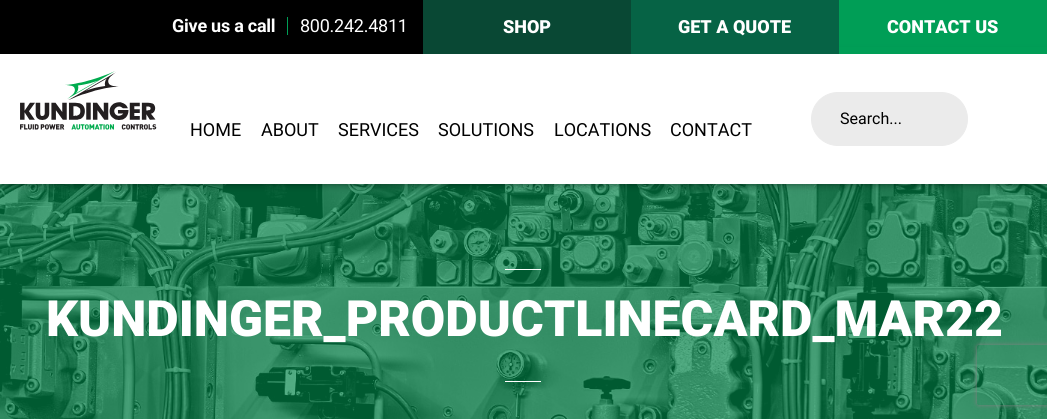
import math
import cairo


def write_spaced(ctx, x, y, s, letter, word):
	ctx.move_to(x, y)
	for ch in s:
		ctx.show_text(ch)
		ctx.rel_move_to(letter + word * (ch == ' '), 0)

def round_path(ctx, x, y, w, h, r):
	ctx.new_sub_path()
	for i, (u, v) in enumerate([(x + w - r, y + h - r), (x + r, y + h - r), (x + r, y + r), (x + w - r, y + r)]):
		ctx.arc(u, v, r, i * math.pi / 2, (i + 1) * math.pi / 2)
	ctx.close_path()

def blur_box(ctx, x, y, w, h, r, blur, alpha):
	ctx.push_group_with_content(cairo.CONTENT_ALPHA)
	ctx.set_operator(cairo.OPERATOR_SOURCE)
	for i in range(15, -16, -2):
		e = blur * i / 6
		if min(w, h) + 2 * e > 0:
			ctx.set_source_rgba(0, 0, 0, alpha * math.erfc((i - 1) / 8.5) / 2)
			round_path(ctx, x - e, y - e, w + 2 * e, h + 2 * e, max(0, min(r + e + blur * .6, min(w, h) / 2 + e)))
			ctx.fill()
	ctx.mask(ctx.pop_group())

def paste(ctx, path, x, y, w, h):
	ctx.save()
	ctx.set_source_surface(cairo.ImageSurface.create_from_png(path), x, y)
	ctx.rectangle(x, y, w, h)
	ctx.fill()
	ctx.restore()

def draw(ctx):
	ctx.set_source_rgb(0, 0.62, 0.337)
	ctx.paint()
	paste(ctx, 'media/2.png', 0, 184, 1047, 235)
	ctx.set_source_rgb(0, 0, 0)
	blur_box(ctx, 0, 54, 1047, 130, 0, 4, 0.5)
	ctx.set_source_rgb(0, 0, 0)
	ctx.rectangle(0, 0, 423, 54)
	ctx.fill()
	ctx.select_font_face('Roboto', cairo.FONT_SLANT_NORMAL, cairo.FONT_WEIGHT_BOLD)
	ctx.set_font_size(18)
	ctx.set_source_rgb(1, 1, 1)
	write_spaced(ctx, 172, 32, 'Give us a call', -0.25, 0)
	ctx.set_source_rgb(0, 0.62, 0.337)
	ctx.rectangle(287, 17, 1, 18)
	ctx.fill()
	ctx.select_font_face('Roboto')
	ctx.set_source_rgb(1, 1, 1)
	write_spaced(ctx, 300, 32, '800.242.4811', -0.25, 0)
	ctx.set_source_rgb(0.039, 0.282, 0.204)
	ctx.rectangle(423, 0, 208, 54)
	ctx.fill()
	ctx.select_font_face('Roboto Black')
	ctx.set_source_rgb(1, 1, 1)
	ctx.move_to(503, 33)
	ctx.show_text('SHOP')
	ctx.set_source_rgb(0.024, 0.388, 0.271)
	ctx.rectangle(631, 0, 208, 54)
	ctx.fill()
	ctx.set_source_rgb(1, 1, 1)
	ctx.move_to(678, 33)
	ctx.show_text('GET A QUOTE')
	ctx.set_source_rgb(0, 0.62, 0.337)
	ctx.rectangle(839, 47, 208, 7)
	ctx.fill()
	ctx.set_source_rgb(1, 1, 1)
	ctx.move_to(887, 33)
	ctx.show_text('CONTACT US')
	ctx.rectangle(0, 54, 1047, 130)
	ctx.fill()
	paste(ctx, 'media/1.png', 20, 71, 137, 59)
	ctx.set_source_rgb(0.918, 0.918, 0.918)
	round_path(ctx, 811.5, 92.5, 156, 53, 26.5)
	ctx.fill_preserve()
	ctx.set_line_width(1)
	ctx.stroke()
	ctx.select_font_face('Roboto')
	ctx.set_font_size(16)
	ctx.set_source_rgb(0, 0, 0)
	ctx.move_to(840, 124)
	ctx.show_text('Search...')
	ctx.set_font_size(18)
	for x, y, s in [
		(190, 136, 'HOME'),
		(261, 136, 'ABOUT'),
		(338, 136, 'SERVICES'),
		(438, 136, 'SOLUTIONS'),
		(554, 136, 'LOCATIONS'),
		(670, 136, 'CONTACT'),
	]:
		ctx.move_to(x, y)
		ctx.show_text(s)
	ctx.set_source_rgb(1, 1, 1)
	ctx.rectangle(505, 269, 36, 1)
	ctx.fill()
	ctx.select_font_face('Roboto Black')
	ctx.set_font_size(50)
	ctx.move_to(46, 336)
	ctx.show_text('KUNDINGER_PRODUCTLINECARD_MAR22')
	ctx.rectangle(505, 381, 36, 1)
	ctx.fill()
	ctx.save()
	ctx.set_fill_rule(cairo.FILL_RULE_EVEN_ODD)
	ctx.new_path()
	ctx.move_to(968, 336)
	ctx.line_to(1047, 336)
	ctx.line_to(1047, 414)
	ctx.line_to(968, 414)
	ctx.close_path()
	ctx.move_to(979, 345)
	ctx.line_to(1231, 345)
	ctx.curve_to(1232, 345, 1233, 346, 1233, 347)
	ctx.line_to(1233, 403)
	ctx.curve_to(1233, 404, 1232, 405, 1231, 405)
	ctx.line_to(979, 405)
	ctx.curve_to(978, 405, 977, 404, 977, 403)
	ctx.line_to(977, 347)
	ctx.curve_to(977, 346, 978, 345, 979, 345)
	ctx.close_path()
	ctx.clip()
	ctx.set_source_rgb(0.502, 0.502, 0.502)
	blur_box(ctx, 977, 345, 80, 60, 2, 2.5, 1)
	ctx.restore()


surface = cairo.ImageSurface(cairo.FORMAT_RGB24, 1047, 419)
ctx = cairo.Context(surface)
options = cairo.FontOptions()
options.set_hint_metrics(cairo.HINT_METRICS_OFF)
options.set_hint_style(cairo.HINT_STYLE_NONE)
ctx.set_font_options(options)
ctx.set_miter_limit(4)
draw(ctx)
surface.write_to_png('image.png')
